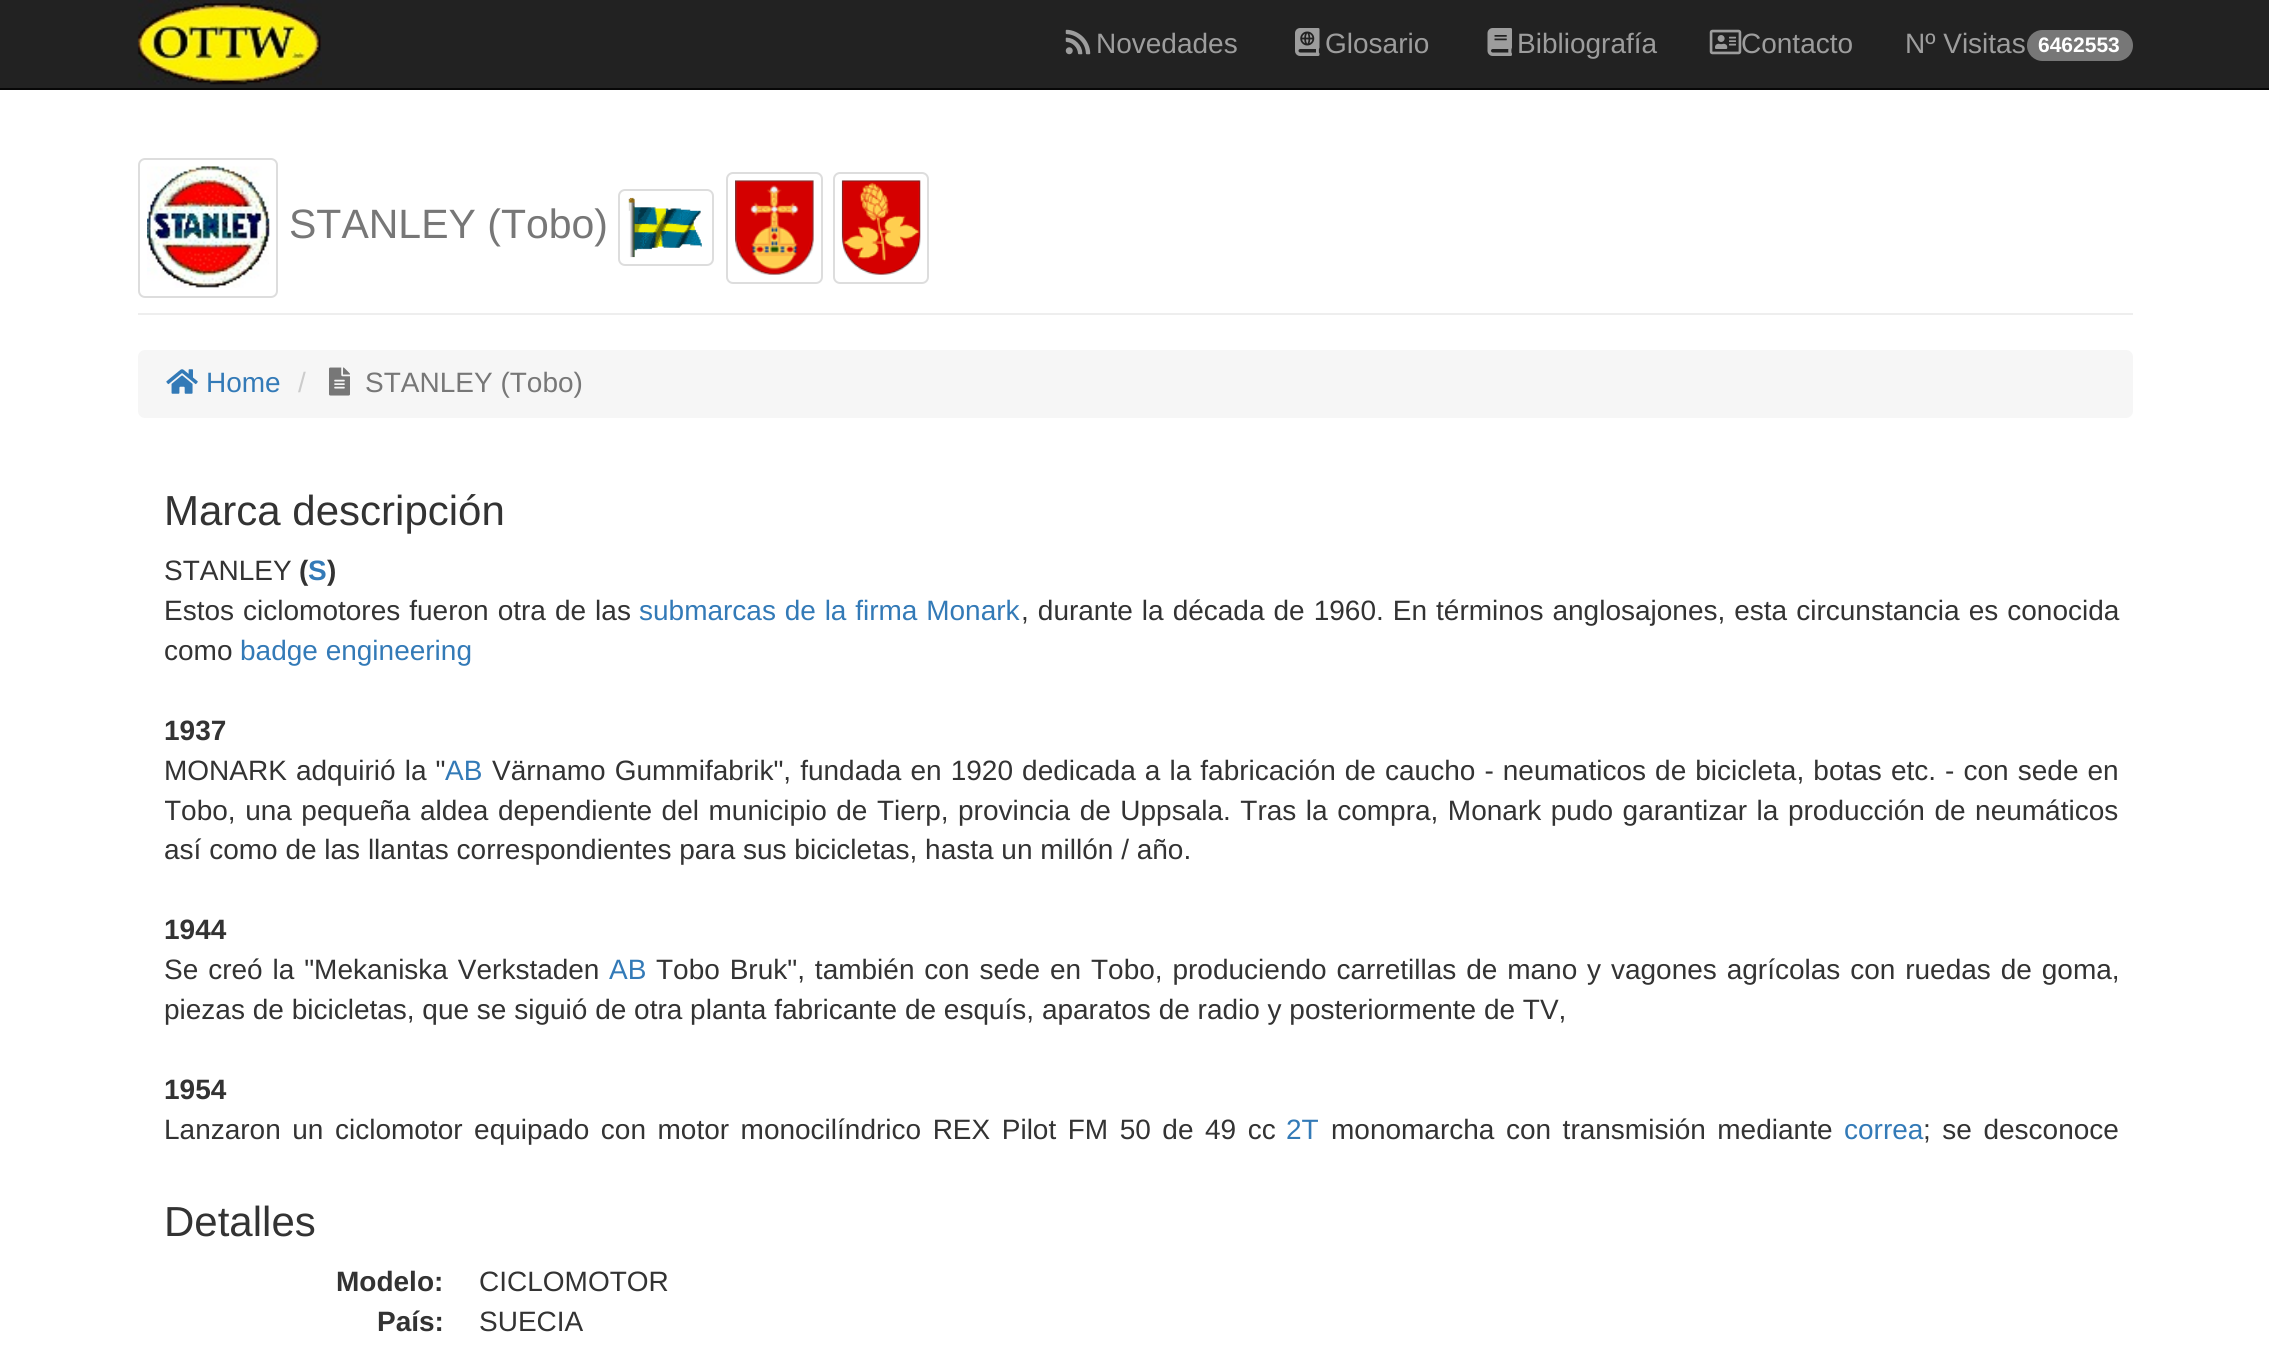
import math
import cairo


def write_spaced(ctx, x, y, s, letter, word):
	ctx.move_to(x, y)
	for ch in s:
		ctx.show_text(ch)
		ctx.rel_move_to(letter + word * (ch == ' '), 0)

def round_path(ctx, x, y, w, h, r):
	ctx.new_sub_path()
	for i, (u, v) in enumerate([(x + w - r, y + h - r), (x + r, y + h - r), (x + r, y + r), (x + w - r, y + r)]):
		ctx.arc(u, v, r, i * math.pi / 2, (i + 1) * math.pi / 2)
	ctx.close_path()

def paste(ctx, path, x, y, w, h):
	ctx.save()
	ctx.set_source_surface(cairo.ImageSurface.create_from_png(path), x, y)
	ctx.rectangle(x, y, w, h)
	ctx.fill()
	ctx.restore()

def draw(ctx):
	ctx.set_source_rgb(1, 1, 1)
	ctx.paint()
	ctx.set_source_rgb(0.133, 0.133, 0.133)
	ctx.rectangle(0, 0, 2269, 88)
	ctx.fill()
	ctx.set_source_rgb(0.031, 0.031, 0.031)
	ctx.rectangle(0, 88, 2269, 2)
	ctx.fill()
	paste(ctx, 'media/1.png', 137, 0, 185, 85)
	paste(ctx, 'media/2.png', 1065, 29, 26, 26)
	ctx.select_font_face('Liberation Sans')
	ctx.set_font_size(28)
	ctx.set_source_rgb(0.616, 0.616, 0.616)
	ctx.move_to(1096, 53)
	ctx.show_text('Novedades')
	paste(ctx, 'media/3.png', 1295, 28, 25, 28)
	ctx.move_to(1325, 53)
	ctx.show_text('Glosario')
	paste(ctx, 'media/4.png', 1487, 28, 25, 28)
	ctx.move_to(1517, 53)
	ctx.show_text('Bibliografía')
	paste(ctx, 'media/5.png', 1709, 29, 33, 26)
	ctx.move_to(1741, 53)
	ctx.show_text('Contacto')
	ctx.move_to(1905, 53)
	ctx.show_text('Nº Visitas')
	ctx.set_source_rgb(0.467, 0.467, 0.467)
	round_path(ctx, 2027, 30, 106, 31, 15.5)
	ctx.fill()
	ctx.select_font_face('Liberation Sans', cairo.FONT_SLANT_NORMAL, cairo.FONT_WEIGHT_BOLD)
	ctx.set_font_size(21)
	ctx.set_source_rgb(1, 1, 1)
	ctx.move_to(2038, 52)
	ctx.show_text('6462553')
	ctx.set_source_rgb(0.933, 0.933, 0.933)
	ctx.rectangle(138, 313, 1995, 2)
	ctx.fill()
	round_path(ctx, 139, 159, 138, 138, 6)
	ctx.set_source_rgb(0.867, 0.867, 0.867)
	ctx.stroke()
	paste(ctx, 'media/6.png', 147, 166, 123, 122)
	ctx.select_font_face('Liberation Sans')
	ctx.set_font_size(41)
	ctx.set_source_rgb(0.467, 0.467, 0.467)
	ctx.move_to(289, 238)
	ctx.show_text('STANLEY (Tobo)')
	round_path(ctx, 619, 190, 94, 75, 6)
	ctx.set_source_rgb(0.867, 0.867, 0.867)
	ctx.stroke()
	paste(ctx, 'media/7.png', 628, 197, 74, 61)
	round_path(ctx, 727, 173, 95, 110, 6)
	ctx.stroke()
	paste(ctx, 'media/8.png', 735, 180, 79, 95)
	round_path(ctx, 834, 173, 94, 110, 6)
	ctx.stroke()
	paste(ctx, 'media/9.png', 841, 180, 80, 95)
	ctx.set_source_rgb(0.961, 0.961, 0.961)
	round_path(ctx, 138, 350, 1995, 68, 7)
	ctx.fill()
	paste(ctx, 'media/10.png', 166, 369, 32, 25)
	ctx.set_font_size(28)
	ctx.set_source_rgb(0.2, 0.478, 0.718)
	ctx.move_to(206, 392)
	ctx.show_text('Home')
	ctx.set_source_rgb(0.8, 0.8, 0.8)
	ctx.move_to(298, 392)
	ctx.show_text('/')
	paste(ctx, 'media/11.png', 329, 367, 21, 29)
	ctx.set_source_rgb(0.467, 0.467, 0.467)
	ctx.move_to(365, 392)
	ctx.show_text('STANLEY (Tobo)')
	ctx.set_font_size(42)
	ctx.set_source_rgb(0.2, 0.2, 0.2)
	ctx.move_to(164, 525)
	ctx.show_text('Marca descripción')
	ctx.set_font_size(28)
	ctx.move_to(164, 580)
	ctx.show_text('STANLEY')
	ctx.select_font_face('Liberation Sans', cairo.FONT_SLANT_NORMAL, cairo.FONT_WEIGHT_BOLD)
	ctx.move_to(299, 580)
	ctx.show_text('(')
	ctx.set_source_rgb(0.2, 0.478, 0.718)
	ctx.move_to(308, 580)
	ctx.show_text('S')
	ctx.set_source_rgb(0.2, 0.2, 0.2)
	ctx.move_to(327, 580)
	ctx.show_text(')')
	ctx.select_font_face('Liberation Sans')
	write_spaced(ctx, 164, 620, 'Estos ciclomotores fueron otra de las', 0, 1.25)
	ctx.set_source_rgb(0.2, 0.478, 0.718)
	write_spaced(ctx, 639, 620, 'submarcas de la firma Monark', 0, 1)
	ctx.set_source_rgb(0.2, 0.2, 0.2)
	write_spaced(ctx, 1021, 620, ', durante la década de 1960. En términos anglosajones, esta circunstancia es conocida', 0, 1.25)
	ctx.save()
	ctx.rectangle(165, 551, 1995, 595)
	ctx.clip()
	ctx.move_to(164, 660)
	ctx.show_text('como')
	ctx.restore()
	ctx.set_source_rgb(0.2, 0.478, 0.718)
	ctx.move_to(240, 660)
	ctx.show_text('badge engineering')
	ctx.select_font_face('Liberation Sans', cairo.FONT_SLANT_NORMAL, cairo.FONT_WEIGHT_BOLD)
	ctx.set_source_rgb(0.2, 0.2, 0.2)
	ctx.move_to(164, 740)
	ctx.show_text('1937')
	ctx.select_font_face('Liberation Sans')
	write_spaced(ctx, 164, 780, 'MONARK adquirió la "', 0, 1.3)
	ctx.set_source_rgb(0.2, 0.478, 0.718)
	ctx.move_to(445, 780)
	ctx.show_text('AB')
	ctx.set_source_rgb(0.2, 0.2, 0.2)
	write_spaced(ctx, 492, 780, 'Värnamo Gummifabrik", fundada en 1920 dedicada a la fabricación de caucho - neumaticos de bicicleta, botas etc. - con sede en', 0, 1.3)
	ctx.save()
	ctx.rectangle(165, 551, 1995, 595)
	ctx.clip()
	write_spaced(ctx, 164, 820, 'Tobo, una pequeña aldea dependiente del municipio de Tierp, provincia de Uppsala. Tras la compra, Monark pudo garantizar la producción de neumáticos', 0, 1.75)
	ctx.restore()
	ctx.move_to(164, 859)
	ctx.show_text('así como de las llantas correspondientes para sus bicicletas, hasta un millón / año.')
	ctx.select_font_face('Liberation Sans', cairo.FONT_SLANT_NORMAL, cairo.FONT_WEIGHT_BOLD)
	ctx.move_to(164, 939)
	ctx.show_text('1944')
	ctx.select_font_face('Liberation Sans')
	write_spaced(ctx, 164, 979, 'Se creó la "Mekaniska Verkstaden', 0, 2.1)
	ctx.set_source_rgb(0.2, 0.478, 0.718)
	ctx.move_to(609, 979)
	ctx.show_text('AB')
	ctx.set_source_rgb(0.2, 0.2, 0.2)
	write_spaced(ctx, 656, 979, 'Tobo Bruk", también con sede en Tobo, produciendo carretillas de mano y vagones agrícolas con ruedas de goma,', 0, 2.1)
	ctx.move_to(164, 1019)
	ctx.show_text('piezas de bicicletas, que se siguió de otra planta fabricante de esquís, aparatos de radio y posteriormente de TV,')
	ctx.select_font_face('Liberation Sans', cairo.FONT_SLANT_NORMAL, cairo.FONT_WEIGHT_BOLD)
	ctx.move_to(164, 1099)
	ctx.show_text('1954')
	ctx.select_font_face('Liberation Sans')
	write_spaced(ctx, 164, 1139, 'Lanzaron un ciclomotor equipado con motor monocilíndrico REX Pilot FM 50 de 49 cc', 0, 3.75)
	ctx.set_source_rgb(0.2, 0.478, 0.718)
	ctx.move_to(1286, 1139)
	ctx.show_text('2T')
	ctx.set_source_rgb(0.2, 0.2, 0.2)
	write_spaced(ctx, 1331, 1139, 'monomarcha con transmisión mediante', 0, 3.75)
	ctx.set_source_rgb(0.2, 0.478, 0.718)
	ctx.move_to(1844, 1139)
	ctx.show_text('correa')
	ctx.set_source_rgb(0.2, 0.2, 0.2)
	write_spaced(ctx, 1923, 1139, '; se desconoce', 0, 3.75)
	ctx.set_font_size(42)
	ctx.move_to(164, 1236)
	ctx.show_text('Detalles')
	ctx.select_font_face('Liberation Sans', cairo.FONT_SLANT_NORMAL, cairo.FONT_WEIGHT_BOLD)
	ctx.set_font_size(28)
	ctx.move_to(336, 1291)
	ctx.show_text('Modelo:')
	ctx.select_font_face('Liberation Sans')
	ctx.move_to(479, 1291)
	ctx.show_text('CICLOMOTOR')
	ctx.select_font_face('Liberation Sans', cairo.FONT_SLANT_NORMAL, cairo.FONT_WEIGHT_BOLD)
	ctx.move_to(377, 1331)
	ctx.show_text('País:')
	ctx.select_font_face('Liberation Sans')
	ctx.move_to(479, 1331)
	ctx.show_text('SUECIA')


surface = cairo.ImageSurface(cairo.FORMAT_RGB24, 2269, 1359)
ctx = cairo.Context(surface)
options = cairo.FontOptions()
options.set_hint_metrics(cairo.HINT_METRICS_OFF)
options.set_hint_style(cairo.HINT_STYLE_NONE)
ctx.set_font_options(options)
ctx.set_miter_limit(4)
draw(ctx)
surface.write_to_png('image.png')
